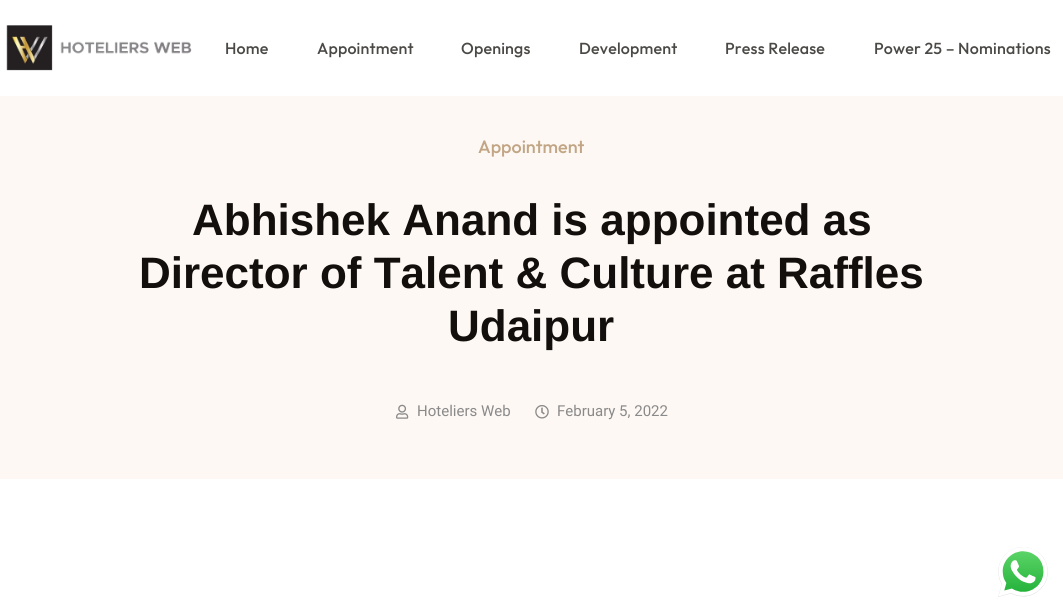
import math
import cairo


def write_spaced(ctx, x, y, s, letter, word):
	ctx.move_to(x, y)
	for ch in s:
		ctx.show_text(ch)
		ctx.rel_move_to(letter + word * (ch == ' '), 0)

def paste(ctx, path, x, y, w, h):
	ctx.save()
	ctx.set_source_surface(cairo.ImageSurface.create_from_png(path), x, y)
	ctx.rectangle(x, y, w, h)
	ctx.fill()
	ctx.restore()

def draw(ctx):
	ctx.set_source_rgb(1, 1, 1)
	ctx.paint()
	paste(ctx, 'media/1.png', 6, 25, 186, 46)
	ctx.select_font_face('Outfit Medium')
	ctx.set_font_size(16)
	ctx.set_source_rgb(0.29, 0.286, 0.275)
	for x, y, s in [
		(225, 54, 'Home'),
		(317, 54, 'Appointment'),
		(461, 54, 'Openings'),
		(579, 54, 'Development'),
		(725, 54, 'Press Release'),
		(874, 54, 'Power 25 – Nominations'),
	]:
		write_spaced(ctx, x, y, s, 0.2, 0)
	ctx.set_source_rgb(0.992, 0.969, 0.957)
	ctx.rectangle(0, 96, 1063, 383)
	ctx.fill()
	ctx.set_font_size(18)
	ctx.set_source_rgb(0.757, 0.647, 0.518)
	ctx.move_to(478, 153)
	ctx.show_text('Appointment')
	ctx.select_font_face('Liberation Sans', cairo.FONT_SLANT_NORMAL, cairo.FONT_WEIGHT_BOLD)
	ctx.set_font_size(44)
	ctx.set_source_rgb(0.071, 0.059, 0.047)
	for x, y, s in [
		(192, 235, 'Abhishek Anand is appointed as'),
		(139, 288, 'Director of Talent & Culture at Raffles'),
		(448, 341, 'Udaipur'),
	]:
		ctx.move_to(x, y)
		ctx.show_text(s)
	paste(ctx, 'media/2.png', 396, 404, 13, 15)
	ctx.select_font_face('Heebo')
	ctx.set_font_size(15)
	ctx.set_source_rgb(0.541, 0.541, 0.541)
	ctx.move_to(417, 416)
	ctx.show_text('Hoteliers Web')
	paste(ctx, 'media/3.png', 535, 405, 14, 14)
	ctx.move_to(557, 416)
	ctx.show_text('February 5, 2022')
	paste(ctx, 'media/4.png', 998, 547, 50, 50)


surface = cairo.ImageSurface(cairo.FORMAT_RGB24, 1063, 612)
ctx = cairo.Context(surface)
options = cairo.FontOptions()
options.set_hint_metrics(cairo.HINT_METRICS_OFF)
options.set_hint_style(cairo.HINT_STYLE_NONE)
ctx.set_font_options(options)
ctx.set_miter_limit(4)
draw(ctx)
surface.write_to_png('image.png')
